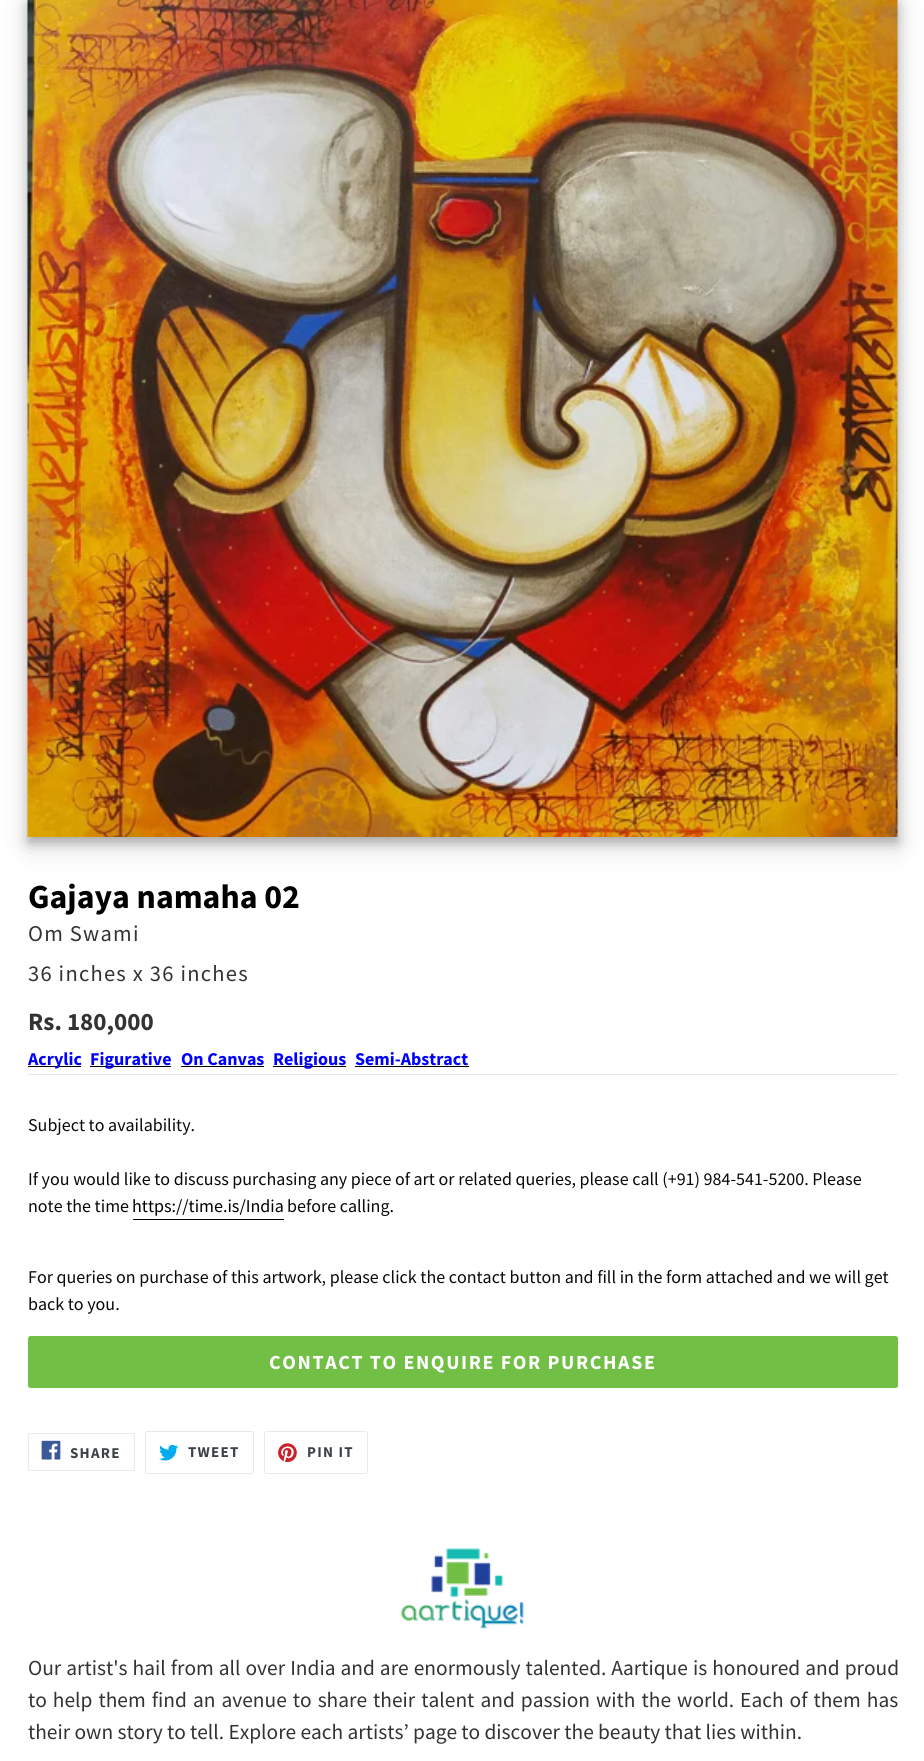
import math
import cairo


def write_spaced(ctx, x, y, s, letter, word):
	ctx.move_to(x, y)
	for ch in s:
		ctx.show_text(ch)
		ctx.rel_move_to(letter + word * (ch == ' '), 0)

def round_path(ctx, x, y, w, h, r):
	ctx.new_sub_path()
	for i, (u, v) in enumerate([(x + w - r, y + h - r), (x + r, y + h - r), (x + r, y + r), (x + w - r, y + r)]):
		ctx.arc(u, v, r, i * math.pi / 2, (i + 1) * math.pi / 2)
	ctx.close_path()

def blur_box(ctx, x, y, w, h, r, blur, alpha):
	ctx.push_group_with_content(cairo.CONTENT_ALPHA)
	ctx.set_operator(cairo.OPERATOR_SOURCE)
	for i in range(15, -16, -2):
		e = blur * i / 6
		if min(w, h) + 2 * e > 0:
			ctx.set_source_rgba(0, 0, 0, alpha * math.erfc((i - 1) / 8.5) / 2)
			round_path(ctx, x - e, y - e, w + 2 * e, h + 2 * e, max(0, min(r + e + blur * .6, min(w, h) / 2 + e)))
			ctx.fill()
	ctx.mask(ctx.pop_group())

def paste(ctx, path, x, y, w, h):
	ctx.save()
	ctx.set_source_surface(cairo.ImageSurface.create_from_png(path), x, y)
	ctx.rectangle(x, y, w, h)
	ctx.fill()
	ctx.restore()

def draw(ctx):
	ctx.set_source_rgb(1, 1, 1)
	ctx.paint()
	ctx.set_source_rgb(0, 0, 0)
	blur_box(ctx, 28, 5, 870, 840, 0, 12.5, 0.19)
	blur_box(ctx, 28, 3, 870, 840, 0, 5, 0.2)
	paste(ctx, 'media/1.png', 27, 0, 871, 837)
	ctx.select_font_face('Source Sans Pro', cairo.FONT_SLANT_NORMAL, cairo.FONT_WEIGHT_BOLD)
	ctx.set_font_size(33.75)
	ctx.set_source_rgb(0, 0, 0)
	ctx.move_to(28, 908)
	ctx.show_text('Gajaya namaha 02')
	ctx.select_font_face('Source Sans Pro')
	ctx.set_font_size(22.5)
	ctx.set_source_rgb(0.2, 0.2, 0.2)
	write_spaced(ctx, 28, 941, 'Om Swami', 1.25, 0)
	write_spaced(ctx, 28, 981, '36 inches x 36 inches', 1.25, 0)
	ctx.select_font_face('Source Sans Pro', cairo.FONT_SLANT_NORMAL, cairo.FONT_WEIGHT_BOLD)
	ctx.set_font_size(25)
	ctx.move_to(28, 1030)
	ctx.show_text('Rs. 180,000')
	ctx.set_source_rgb(0, 0, 0)
	ctx.rectangle(28, 1066, 53, 1)
	ctx.fill()
	ctx.set_font_size(18)
	ctx.set_source_rgb(0, 0, 1)
	ctx.move_to(28, 1065)
	ctx.show_text('Acrylic')
	ctx.set_source_rgb(0, 0, 0)
	ctx.rectangle(90, 1066, 81, 1)
	ctx.fill()
	ctx.set_source_rgb(0, 0, 1)
	ctx.move_to(90, 1065)
	ctx.show_text('Figurative')
	ctx.move_to(181, 1065)
	ctx.show_text('On Canvas')
	ctx.set_source_rgb(0, 0, 0)
	ctx.rectangle(181, 1066, 83, 1)
	ctx.fill()
	ctx.rectangle(273, 1066, 73, 1)
	ctx.fill()
	ctx.set_source_rgb(0, 0, 1)
	ctx.move_to(273, 1065)
	ctx.show_text('Religious')
	ctx.move_to(355, 1065)
	ctx.show_text('Semi-Abstract')
	ctx.set_source_rgb(0, 0, 0)
	ctx.rectangle(355, 1066, 114, 1)
	ctx.fill()
	ctx.set_source_rgb(0.91, 0.914, 0.922)
	ctx.rectangle(28, 1074, 870, 1)
	ctx.fill()
	ctx.select_font_face('Source Sans Pro')
	ctx.set_source_rgb(0.039, 0.039, 0.039)
	for x, y, s in [
		(28, 1131, 'Subject to availability.'),
		(28, 1185, 'If you would like to discuss purchasing any piece of art or related queries, please call (+91) 984-541-5200. Please'),
		(28, 1212, 'note the time'),
	]:
		ctx.move_to(x, y)
		ctx.show_text(s)
	ctx.set_source_rgb(0, 0, 0)
	ctx.move_to(132, 1212)
	ctx.show_text('https://time.is/India')
	ctx.rectangle(133, 1219, 151, 1)
	ctx.fill()
	ctx.set_source_rgb(0.039, 0.039, 0.039)
	for x, y, s in [
		(287, 1212, 'before calling.'),
		(28, 1283, 'For queries on purchase of this artwork, please click the contact button and fill in the form attached and we will get'),
		(28, 1310, 'back to you.'),
	]:
		ctx.move_to(x, y)
		ctx.show_text(s)
	ctx.set_source_rgb(0.443, 0.749, 0.267)
	round_path(ctx, 28, 1336, 870, 52, 2.5)
	ctx.fill()
	ctx.select_font_face('Source Sans Pro', cairo.FONT_SLANT_NORMAL, cairo.FONT_WEIGHT_BOLD)
	ctx.set_font_size(20)
	ctx.set_source_rgb(1, 1, 1)
	write_spaced(ctx, 269, 1369, 'CONTACT TO ENQUIRE FOR PURCHASE', 1.6, 0)
	round_path(ctx, 28.5, 1433.5, 106, 37, 2)
	ctx.set_source_rgb(0.91, 0.914, 0.922)
	ctx.set_line_width(1)
	ctx.stroke()
	paste(ctx, 'media/2.png', 41, 1440, 20, 20)
	ctx.set_font_size(15)
	ctx.set_source_rgb(0.239, 0.259, 0.275)
	write_spaced(ctx, 70, 1458, 'SHARE', 1.25, 0)
	round_path(ctx, 145.5, 1431.5, 108, 42, 2)
	ctx.set_source_rgb(0.91, 0.914, 0.922)
	ctx.stroke()
	paste(ctx, 'media/3.png', 159, 1444, 20, 17)
	ctx.set_source_rgb(0.239, 0.259, 0.275)
	write_spaced(ctx, 188, 1457, 'TWEET', 1.25, 0)
	round_path(ctx, 264.5, 1431.5, 103, 42, 2)
	ctx.set_source_rgb(0.91, 0.914, 0.922)
	ctx.stroke()
	paste(ctx, 'media/4.png', 278, 1443, 19, 20)
	ctx.set_source_rgb(0.239, 0.259, 0.275)
	write_spaced(ctx, 307, 1457, 'PIN IT', 1.25, 0)
	paste(ctx, 'media/5.png', 401, 1548, 123, 81)
	ctx.select_font_face('Source Sans Pro')
	ctx.set_font_size(21.4)
	ctx.set_source_rgb(0.2, 0.2, 0.2)
	write_spaced(ctx, 28, 1675, 'Our artist\'s hail from all over India and are enormously talented. Aartique is honoured and proud', 0, 0.75)
	write_spaced(ctx, 28, 1707, 'to help them find an avenue to share their talent and passion with the world. Each of them has', 0, 1.75)
	ctx.move_to(28, 1739)
	ctx.show_text('their own story to tell. Explore each artists’ page to discover the beauty that lies within.')


surface = cairo.ImageSurface(cairo.FORMAT_RGB24, 924, 1761)
ctx = cairo.Context(surface)
options = cairo.FontOptions()
options.set_hint_metrics(cairo.HINT_METRICS_OFF)
options.set_hint_style(cairo.HINT_STYLE_NONE)
ctx.set_font_options(options)
ctx.set_miter_limit(4)
draw(ctx)
surface.write_to_png('image.png')
